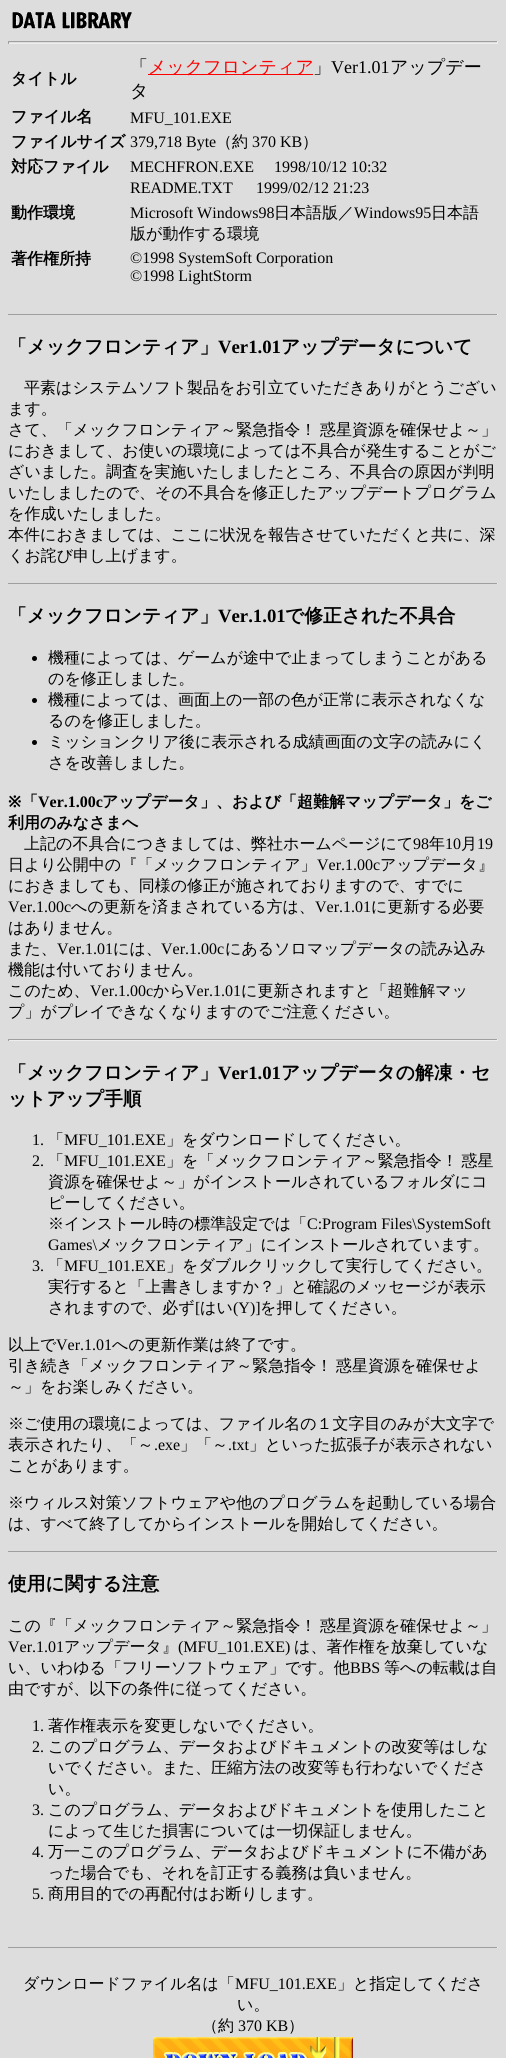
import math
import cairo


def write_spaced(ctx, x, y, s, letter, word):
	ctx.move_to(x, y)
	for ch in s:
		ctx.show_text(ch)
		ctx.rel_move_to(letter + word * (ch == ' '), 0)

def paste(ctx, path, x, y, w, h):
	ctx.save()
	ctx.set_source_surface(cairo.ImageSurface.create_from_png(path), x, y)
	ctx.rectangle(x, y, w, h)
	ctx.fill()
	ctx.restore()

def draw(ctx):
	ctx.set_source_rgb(0.867, 0.867, 0.867)
	ctx.paint()
	paste(ctx, 'media/1.png', 12, 12, 120, 17)
	ctx.set_source_rgb(0.624, 0.624, 0.624)
	ctx.rectangle(8, 41, 490, 1)
	ctx.fill()
	ctx.set_source_rgb(0.933, 0.933, 0.933)
	ctx.rectangle(497, 41, 1, 3)
	ctx.rectangle(8, 43, 490, 1)
	ctx.fill()
	ctx.set_source_rgb(0.624, 0.624, 0.624)
	ctx.rectangle(8, 41, 1, 3)
	ctx.fill()
	ctx.select_font_face('WenQuanYi Zen Hei', cairo.FONT_SLANT_NORMAL, cairo.FONT_WEIGHT_BOLD)
	ctx.set_font_size(16)
	ctx.set_source_rgb(0, 0, 0)
	ctx.move_to(11, 84)
	ctx.show_text('タイトル')
	ctx.select_font_face('WenQuanYi Zen Hei Medium')
	ctx.set_font_size(18)
	ctx.move_to(130, 73)
	ctx.show_text('「')
	ctx.set_source_rgb(1, 0, 0)
	ctx.rectangle(148, 74, 165, 1)
	ctx.fill()
	ctx.move_to(148, 73)
	ctx.show_text('メックフロンティア')
	ctx.set_source_rgb(0, 0, 0)
	ctx.move_to(313, 73)
	ctx.show_text('」')
	ctx.select_font_face('Liberation Serif')
	ctx.move_to(331, 73)
	ctx.show_text('Ver1.01')
	ctx.select_font_face('WenQuanYi Zen Hei Medium')
	ctx.move_to(390, 73)
	ctx.show_text('アップデー')
	ctx.move_to(130, 97)
	ctx.show_text('タ')
	ctx.select_font_face('WenQuanYi Zen Hei', cairo.FONT_SLANT_NORMAL, cairo.FONT_WEIGHT_BOLD)
	ctx.set_font_size(16)
	ctx.move_to(11, 122)
	ctx.show_text('ファイル名')
	ctx.select_font_face('Liberation Serif')
	ctx.move_to(130, 123)
	ctx.show_text('MFU_101.EXE')
	ctx.select_font_face('WenQuanYi Zen Hei', cairo.FONT_SLANT_NORMAL, cairo.FONT_WEIGHT_BOLD)
	ctx.move_to(11, 147)
	ctx.show_text('ファイルサイズ')
	ctx.select_font_face('Liberation Serif')
	ctx.move_to(130, 147)
	ctx.show_text('379,718 Byte')
	ctx.select_font_face('WenQuanYi Zen Hei Medium')
	ctx.move_to(216, 147)
	ctx.show_text('（約')
	ctx.select_font_face('Liberation Serif')
	ctx.move_to(252, 147)
	ctx.show_text('370 KB')
	ctx.select_font_face('WenQuanYi Zen Hei Medium')
	ctx.move_to(302, 147)
	ctx.show_text('）')
	ctx.select_font_face('WenQuanYi Zen Hei', cairo.FONT_SLANT_NORMAL, cairo.FONT_WEIGHT_BOLD)
	ctx.move_to(11, 172)
	ctx.show_text('対応ファイル')
	ctx.select_font_face('Liberation Serif')
	for x, y, s in [
		(130, 172, 'MECHFRON.EXE'),
		(274, 172, '1998/10/12 10:32'),
		(130, 193, 'README.TXT'),
		(256, 193, '1999/02/12 21:23'),
	]:
		ctx.move_to(x, y)
		ctx.show_text(s)
	ctx.select_font_face('WenQuanYi Zen Hei', cairo.FONT_SLANT_NORMAL, cairo.FONT_WEIGHT_BOLD)
	ctx.move_to(11, 218)
	ctx.show_text('動作環境')
	ctx.select_font_face('Liberation Serif')
	ctx.move_to(130, 218)
	ctx.show_text('Microsoft Windows98')
	ctx.select_font_face('WenQuanYi Zen Hei Medium')
	ctx.move_to(274, 218)
	ctx.show_text('日本語版／')
	ctx.select_font_face('Liberation Serif')
	ctx.move_to(354, 218)
	ctx.show_text('Windows95')
	ctx.select_font_face('WenQuanYi Zen Hei Medium')
	ctx.move_to(431, 218)
	ctx.show_text('日本語')
	ctx.move_to(130, 239)
	ctx.show_text('版が動作する環境')
	ctx.select_font_face('WenQuanYi Zen Hei', cairo.FONT_SLANT_NORMAL, cairo.FONT_WEIGHT_BOLD)
	ctx.move_to(11, 264)
	ctx.show_text('著作権所持')
	ctx.select_font_face('Liberation Serif')
	ctx.move_to(130, 263)
	ctx.show_text('©1998 SystemSoft Corporation')
	ctx.move_to(130, 281)
	ctx.show_text('©1998 LightStorm')
	ctx.set_source_rgb(0.624, 0.624, 0.624)
	ctx.rectangle(8, 314, 490, 1)
	ctx.fill()
	ctx.set_source_rgb(0.933, 0.933, 0.933)
	ctx.rectangle(497, 314, 1, 1)
	ctx.fill()
	ctx.select_font_face('WenQuanYi Zen Hei', cairo.FONT_SLANT_NORMAL, cairo.FONT_WEIGHT_BOLD)
	ctx.set_font_size(18.75)
	ctx.set_source_rgb(0, 0, 0)
	ctx.move_to(8, 353)
	ctx.show_text('「メックフロンティア」')
	ctx.select_font_face('Liberation Serif', cairo.FONT_SLANT_NORMAL, cairo.FONT_WEIGHT_BOLD)
	ctx.move_to(218, 353)
	ctx.show_text('Ver1.01')
	ctx.select_font_face('WenQuanYi Zen Hei', cairo.FONT_SLANT_NORMAL, cairo.FONT_WEIGHT_BOLD)
	ctx.move_to(281, 353)
	ctx.show_text('アップデータについて')
	ctx.select_font_face('WenQuanYi Zen Hei Medium')
	ctx.set_font_size(16)
	ctx.move_to(24, 393)
	ctx.show_text('平素はシステムソフト製品をお引立ていただきありがとうござい')
	ctx.move_to(8, 414)
	ctx.show_text('ます。')
	write_spaced(ctx, 8, 435, 'さて、「メックフロンティア～緊急指令！ 惑星資源を確保せよ～」', 0, -1)
	for x, y, s in [
		(8, 456, 'におきまして、お使いの環境によっては不具合が発生することがご'),
		(8, 477, 'ざいました。調査を実施いたしましたところ、不具合の原因が判明'),
		(8, 498, 'いたしましたので、その不具合を修正したアップデートプログラム'),
		(8, 519, 'を作成いたしました。'),
		(8, 540, '本件におきましては、ここに状況を報告させていただくと共に、深'),
		(8, 561, 'くお詫び申し上げます。'),
	]:
		ctx.move_to(x, y)
		ctx.show_text(s)
	ctx.set_source_rgb(0.624, 0.624, 0.624)
	ctx.rectangle(8, 583, 490, 1)
	ctx.fill()
	ctx.set_source_rgb(0.933, 0.933, 0.933)
	ctx.rectangle(497, 583, 1, 1)
	ctx.fill()
	ctx.select_font_face('WenQuanYi Zen Hei', cairo.FONT_SLANT_NORMAL, cairo.FONT_WEIGHT_BOLD)
	ctx.set_font_size(18.75)
	ctx.set_source_rgb(0, 0, 0)
	ctx.move_to(8, 622)
	ctx.show_text('「メックフロンティア」')
	ctx.select_font_face('Liberation Serif', cairo.FONT_SLANT_NORMAL, cairo.FONT_WEIGHT_BOLD)
	ctx.move_to(218, 622)
	ctx.show_text('Ver.1.01')
	ctx.select_font_face('WenQuanYi Zen Hei', cairo.FONT_SLANT_NORMAL, cairo.FONT_WEIGHT_BOLD)
	ctx.move_to(285, 622)
	ctx.show_text('で修正された不具合')
	ctx.new_path()
	ctx.arc(34.5, 658.5, 2.5, 0, 2 * math.pi)
	ctx.fill()
	ctx.select_font_face('WenQuanYi Zen Hei Medium')
	ctx.set_font_size(16)
	ctx.move_to(48, 663)
	ctx.show_text('機種によっては、ゲームが途中で止まってしまうことがある')
	ctx.move_to(48, 684)
	ctx.show_text('のを修正しました。')
	ctx.new_path()
	ctx.arc(34.5, 700.5, 2.5, 0, 2 * math.pi)
	ctx.fill()
	ctx.move_to(48, 705)
	ctx.show_text('機種によっては、画面上の一部の色が正常に表示されなくな')
	ctx.move_to(48, 726)
	ctx.show_text('るのを修正しました。')
	ctx.new_path()
	ctx.arc(34.5, 742.5, 2.5, 0, 2 * math.pi)
	ctx.fill()
	ctx.move_to(48, 747)
	ctx.show_text('ミッションクリア後に表示される成績画面の文字の読みにく')
	ctx.move_to(48, 768)
	ctx.show_text('さを改善しました。')
	ctx.select_font_face('Noto Sans', cairo.FONT_SLANT_NORMAL, cairo.FONT_WEIGHT_BOLD)
	ctx.move_to(8, 807)
	ctx.show_text('※')
	ctx.select_font_face('WenQuanYi Zen Hei', cairo.FONT_SLANT_NORMAL, cairo.FONT_WEIGHT_BOLD)
	ctx.move_to(22, 807)
	ctx.show_text('「')
	ctx.select_font_face('Liberation Serif', cairo.FONT_SLANT_NORMAL, cairo.FONT_WEIGHT_BOLD)
	ctx.move_to(38, 807)
	ctx.show_text('Ver.1.00c')
	ctx.select_font_face('WenQuanYi Zen Hei', cairo.FONT_SLANT_NORMAL, cairo.FONT_WEIGHT_BOLD)
	ctx.move_to(102, 807)
	ctx.show_text('アップデータ」、および「超難解マップデータ」をご')
	ctx.move_to(8, 828)
	ctx.show_text('利用のみなさまへ')
	ctx.select_font_face('WenQuanYi Zen Hei Medium')
	ctx.move_to(24, 849)
	ctx.show_text('上記の不具合につきましては、弊社ホームページにて')
	ctx.select_font_face('Liberation Serif')
	ctx.move_to(413, 849)
	ctx.show_text('98')
	ctx.select_font_face('WenQuanYi Zen Hei Medium')
	ctx.move_to(429, 849)
	ctx.show_text('年')
	ctx.select_font_face('Liberation Serif')
	ctx.move_to(445, 849)
	ctx.show_text('10')
	ctx.select_font_face('WenQuanYi Zen Hei Medium')
	ctx.move_to(461, 849)
	ctx.show_text('月')
	ctx.select_font_face('Liberation Serif')
	ctx.move_to(477, 849)
	ctx.show_text('19')
	ctx.select_font_face('WenQuanYi Zen Hei Medium')
	ctx.move_to(8, 870)
	ctx.show_text('日より公開中の『「メックフロンティア」')
	ctx.select_font_face('Liberation Serif')
	ctx.move_to(317, 870)
	ctx.show_text('Ver.1.00c')
	ctx.select_font_face('WenQuanYi Zen Hei Medium')
	ctx.move_to(380, 870)
	ctx.show_text('アップデータ』')
	ctx.move_to(8, 891)
	ctx.show_text('におきましても、同様の修正が施されておりますので、すでに')
	ctx.select_font_face('Liberation Serif')
	ctx.move_to(8, 912)
	ctx.show_text('Ver.1.00c')
	ctx.select_font_face('WenQuanYi Zen Hei Medium')
	ctx.move_to(71, 912)
	ctx.show_text('への更新を済まされている方は、')
	ctx.select_font_face('Liberation Serif')
	ctx.move_to(315, 912)
	ctx.show_text('Ver.1.01')
	ctx.select_font_face('WenQuanYi Zen Hei Medium')
	for x, y, s in [
		(371, 912, 'に更新する必要'),
		(8, 933, 'はありません。'),
		(8, 954, 'また、'),
	]:
		ctx.move_to(x, y)
		ctx.show_text(s)
	ctx.select_font_face('Liberation Serif')
	ctx.move_to(57, 954)
	ctx.show_text('Ver.1.01')
	ctx.select_font_face('WenQuanYi Zen Hei Medium')
	ctx.move_to(113, 954)
	ctx.show_text('には、')
	ctx.select_font_face('Liberation Serif')
	ctx.move_to(161, 954)
	ctx.show_text('Ver.1.00c')
	ctx.select_font_face('WenQuanYi Zen Hei Medium')
	for x, y, s in [
		(225, 954, 'にあるソロマップデータの読み込み'),
		(8, 975, '機能は付いておりません。'),
		(8, 996, 'このため、'),
	]:
		ctx.move_to(x, y)
		ctx.show_text(s)
	ctx.select_font_face('Liberation Serif')
	ctx.move_to(90, 996)
	ctx.show_text('Ver.1.00c')
	ctx.select_font_face('WenQuanYi Zen Hei Medium')
	ctx.move_to(153, 996)
	ctx.show_text('から')
	ctx.select_font_face('Liberation Serif')
	ctx.move_to(185, 996)
	ctx.show_text('Ver.1.01')
	ctx.select_font_face('WenQuanYi Zen Hei Medium')
	ctx.move_to(241, 996)
	ctx.show_text('に更新されますと「超難解マッ')
	ctx.move_to(8, 1017)
	ctx.show_text('プ」がプレイできなくなりますのでご注意ください。')
	ctx.set_source_rgb(0.624, 0.624, 0.624)
	ctx.rectangle(8, 1039, 490, 1)
	ctx.fill()
	ctx.set_source_rgb(0.933, 0.933, 0.933)
	ctx.rectangle(497, 1039, 1, 2)
	ctx.rectangle(8, 1040, 490, 1)
	ctx.fill()
	ctx.set_source_rgb(0.624, 0.624, 0.624)
	ctx.rectangle(8, 1039, 1, 2)
	ctx.fill()
	ctx.select_font_face('WenQuanYi Zen Hei', cairo.FONT_SLANT_NORMAL, cairo.FONT_WEIGHT_BOLD)
	ctx.set_font_size(18.75)
	ctx.set_source_rgb(0, 0, 0)
	ctx.move_to(8, 1079)
	ctx.show_text('「メックフロンティア」')
	ctx.select_font_face('Liberation Serif', cairo.FONT_SLANT_NORMAL, cairo.FONT_WEIGHT_BOLD)
	ctx.move_to(218, 1079)
	ctx.show_text('Ver1.01')
	ctx.select_font_face('WenQuanYi Zen Hei', cairo.FONT_SLANT_NORMAL, cairo.FONT_WEIGHT_BOLD)
	ctx.move_to(281, 1079)
	ctx.show_text('アップデータの解凍・セ')
	ctx.move_to(8, 1105)
	ctx.show_text('ットアップ手順')
	ctx.select_font_face('Liberation Serif')
	ctx.set_font_size(16)
	ctx.move_to(32, 1145)
	ctx.show_text('1.')
	ctx.select_font_face('WenQuanYi Zen Hei Medium')
	ctx.move_to(48, 1145)
	ctx.show_text('「')
	ctx.select_font_face('Liberation Serif')
	ctx.move_to(64, 1145)
	ctx.show_text('MFU_101.EXE')
	ctx.select_font_face('WenQuanYi Zen Hei Medium')
	ctx.move_to(166, 1145)
	ctx.show_text('」をダウンロードしてください。')
	ctx.select_font_face('Liberation Serif')
	ctx.move_to(32, 1166)
	ctx.show_text('2.')
	ctx.select_font_face('WenQuanYi Zen Hei Medium')
	ctx.move_to(48, 1166)
	ctx.show_text('「')
	ctx.select_font_face('Liberation Serif')
	ctx.move_to(64, 1166)
	ctx.show_text('MFU_101.EXE')
	ctx.select_font_face('WenQuanYi Zen Hei Medium')
	write_spaced(ctx, 166, 1166, '」を「メックフロンティア～緊急指令！ 惑星', 0, -1)
	for x, y, s in [
		(48, 1187, '資源を確保せよ～」がインストールされているフォルダにコ'),
		(48, 1208, 'ピーしてください。'),
		(48, 1229, '※インストール時の標準設定では「'),
	]:
		ctx.move_to(x, y)
		ctx.show_text(s)
	ctx.select_font_face('Liberation Serif')
	ctx.move_to(307, 1229)
	ctx.show_text('C:Program Files\\SystemSoft')
	ctx.move_to(48, 1250)
	ctx.show_text('Games\\')
	ctx.select_font_face('WenQuanYi Zen Hei Medium')
	ctx.move_to(97, 1250)
	ctx.show_text('メックフロンティア」にインストールされています。')
	ctx.select_font_face('Liberation Serif')
	ctx.move_to(32, 1271)
	ctx.show_text('3.')
	ctx.select_font_face('WenQuanYi Zen Hei Medium')
	ctx.move_to(48, 1271)
	ctx.show_text('「')
	ctx.select_font_face('Liberation Serif')
	ctx.move_to(64, 1271)
	ctx.show_text('MFU_101.EXE')
	ctx.select_font_face('WenQuanYi Zen Hei Medium')
	for x, y, s in [
		(166, 1271, '」をダブルクリックして実行してください。'),
		(48, 1292, '実行すると「上書きしますか？」と確認のメッセージが表示'),
		(48, 1313, 'されますので、必ず'),
	]:
		ctx.move_to(x, y)
		ctx.show_text(s)
	ctx.select_font_face('Liberation Serif')
	ctx.move_to(195, 1313)
	ctx.show_text('[')
	ctx.select_font_face('WenQuanYi Zen Hei Medium')
	ctx.move_to(200, 1313)
	ctx.show_text('はい')
	ctx.select_font_face('Liberation Serif')
	ctx.move_to(233, 1313)
	ctx.show_text('(Y)]')
	ctx.select_font_face('WenQuanYi Zen Hei Medium')
	ctx.move_to(260, 1313)
	ctx.show_text('を押してください。')
	ctx.move_to(8, 1350)
	ctx.show_text('以上で')
	ctx.select_font_face('Liberation Serif')
	ctx.move_to(56, 1350)
	ctx.show_text('Ver.1.01')
	ctx.select_font_face('WenQuanYi Zen Hei Medium')
	ctx.move_to(112, 1350)
	ctx.show_text('への更新作業は終了です。')
	write_spaced(ctx, 8, 1371, '引き続き「メックフロンティア～緊急指令！ 惑星資源を確保せよ', 0, -1)
	for x, y, s in [
		(8, 1392, '～」をお楽しみください。'),
		(8, 1429, '※ご使用の環境によっては、ファイル名の１文字目のみが大文字で'),
		(8, 1450, '表示されたり、「～'),
	]:
		ctx.move_to(x, y)
		ctx.show_text(s)
	ctx.select_font_face('Liberation Serif')
	ctx.move_to(154, 1450)
	ctx.show_text('.exe')
	ctx.select_font_face('WenQuanYi Zen Hei Medium')
	ctx.move_to(180, 1450)
	ctx.show_text('」「～')
	ctx.select_font_face('Liberation Serif')
	ctx.move_to(228, 1450)
	ctx.show_text('.txt')
	ctx.select_font_face('WenQuanYi Zen Hei Medium')
	for x, y, s in [
		(249, 1450, '」といった拡張子が表示されない'),
		(8, 1471, 'ことがあります。'),
		(8, 1508, '※ウィルス対策ソフトウェアや他のプログラムを起動している場合'),
		(8, 1529, 'は、すべて終了してからインストールを開始してください。'),
	]:
		ctx.move_to(x, y)
		ctx.show_text(s)
	ctx.set_source_rgb(0.624, 0.624, 0.624)
	ctx.rectangle(8, 1551, 490, 1)
	ctx.fill()
	ctx.set_source_rgb(0.933, 0.933, 0.933)
	ctx.rectangle(497, 1551, 1, 1)
	ctx.fill()
	ctx.select_font_face('WenQuanYi Zen Hei', cairo.FONT_SLANT_NORMAL, cairo.FONT_WEIGHT_BOLD)
	ctx.set_font_size(18.75)
	ctx.set_source_rgb(0, 0, 0)
	ctx.move_to(8, 1590)
	ctx.show_text('使用に関する注意')
	ctx.select_font_face('WenQuanYi Zen Hei Medium')
	ctx.set_font_size(16)
	write_spaced(ctx, 8, 1631, 'この『「メックフロンティア～緊急指令！ 惑星資源を確保せよ～」', 0, -1)
	ctx.select_font_face('Liberation Serif')
	ctx.move_to(8, 1652)
	ctx.show_text('Ver.1.01')
	ctx.select_font_face('WenQuanYi Zen Hei Medium')
	ctx.move_to(64, 1652)
	ctx.show_text('アップデータ』')
	ctx.select_font_face('Liberation Serif')
	ctx.move_to(178, 1652)
	ctx.show_text('(MFU_101.EXE)')
	ctx.select_font_face('WenQuanYi Zen Hei Medium')
	ctx.move_to(294, 1652)
	ctx.show_text('は、著作権を放棄していな')
	ctx.move_to(8, 1673)
	ctx.show_text('い、いわゆる「フリーソフトウェア」です。他')
	ctx.select_font_face('Liberation Serif')
	ctx.move_to(350, 1673)
	ctx.show_text('BBS')
	ctx.select_font_face('WenQuanYi Zen Hei Medium')
	ctx.move_to(384, 1673)
	ctx.show_text('等への転載は自')
	ctx.move_to(8, 1694)
	ctx.show_text('由ですが、以下の条件に従ってください。')
	ctx.select_font_face('Liberation Serif')
	ctx.move_to(32, 1731)
	ctx.show_text('1.')
	ctx.select_font_face('WenQuanYi Zen Hei Medium')
	ctx.move_to(48, 1731)
	ctx.show_text('著作権表示を変更しないでください。')
	ctx.select_font_face('Liberation Serif')
	ctx.move_to(32, 1752)
	ctx.show_text('2.')
	ctx.select_font_face('WenQuanYi Zen Hei Medium')
	for x, y, s in [
		(48, 1752, 'このプログラム、データおよびドキュメントの改変等はしな'),
		(48, 1773, 'いでください。また、圧縮方法の改変等も行わないでくださ'),
		(48, 1794, 'い。'),
	]:
		ctx.move_to(x, y)
		ctx.show_text(s)
	ctx.select_font_face('Liberation Serif')
	ctx.move_to(32, 1815)
	ctx.show_text('3.')
	ctx.select_font_face('WenQuanYi Zen Hei Medium')
	ctx.move_to(48, 1815)
	ctx.show_text('このプログラム、データおよびドキュメントを使用したこと')
	ctx.move_to(48, 1836)
	ctx.show_text('によって生じた損害については一切保証しません。')
	ctx.select_font_face('Liberation Serif')
	ctx.move_to(32, 1857)
	ctx.show_text('4.')
	ctx.select_font_face('WenQuanYi Zen Hei Medium')
	ctx.move_to(48, 1857)
	ctx.show_text('万一このプログラム、データおよびドキュメントに不備があ')
	ctx.move_to(48, 1878)
	ctx.show_text('った場合でも、それを訂正する義務は負いません。')
	ctx.select_font_face('Liberation Serif')
	ctx.move_to(32, 1899)
	ctx.show_text('5.')
	ctx.select_font_face('WenQuanYi Zen Hei Medium')
	ctx.move_to(48, 1899)
	ctx.show_text('商用目的での再配付はお断りします。')
	ctx.set_source_rgb(0.624, 0.624, 0.624)
	ctx.rectangle(8, 1947, 490, 1)
	ctx.fill()
	ctx.set_source_rgb(0.933, 0.933, 0.933)
	ctx.rectangle(497, 1947, 1, 1)
	ctx.fill()
	ctx.set_source_rgb(0, 0, 0)
	ctx.move_to(23, 1989)
	ctx.show_text('ダウンロードファイル名は「')
	ctx.select_font_face('Liberation Serif')
	ctx.move_to(235, 1989)
	ctx.show_text('MFU_101.EXE')
	ctx.select_font_face('WenQuanYi Zen Hei Medium')
	for x, y, s in [
		(337, 1989, '」と指定してくださ'),
		(237, 2010, 'い。'),
		(202, 2031, '（約'),
	]:
		ctx.move_to(x, y)
		ctx.show_text(s)
	ctx.select_font_face('Liberation Serif')
	ctx.move_to(238, 2031)
	ctx.show_text('370 KB')
	ctx.select_font_face('WenQuanYi Zen Hei Medium')
	ctx.move_to(288, 2031)
	ctx.show_text('）')
	paste(ctx, 'media/2.png', 153, 2037, 200, 21)


surface = cairo.ImageSurface(cairo.FORMAT_RGB24, 506, 2058)
ctx = cairo.Context(surface)
options = cairo.FontOptions()
options.set_hint_metrics(cairo.HINT_METRICS_OFF)
options.set_hint_style(cairo.HINT_STYLE_NONE)
ctx.set_font_options(options)
ctx.set_miter_limit(4)
draw(ctx)
surface.write_to_png('image.png')
